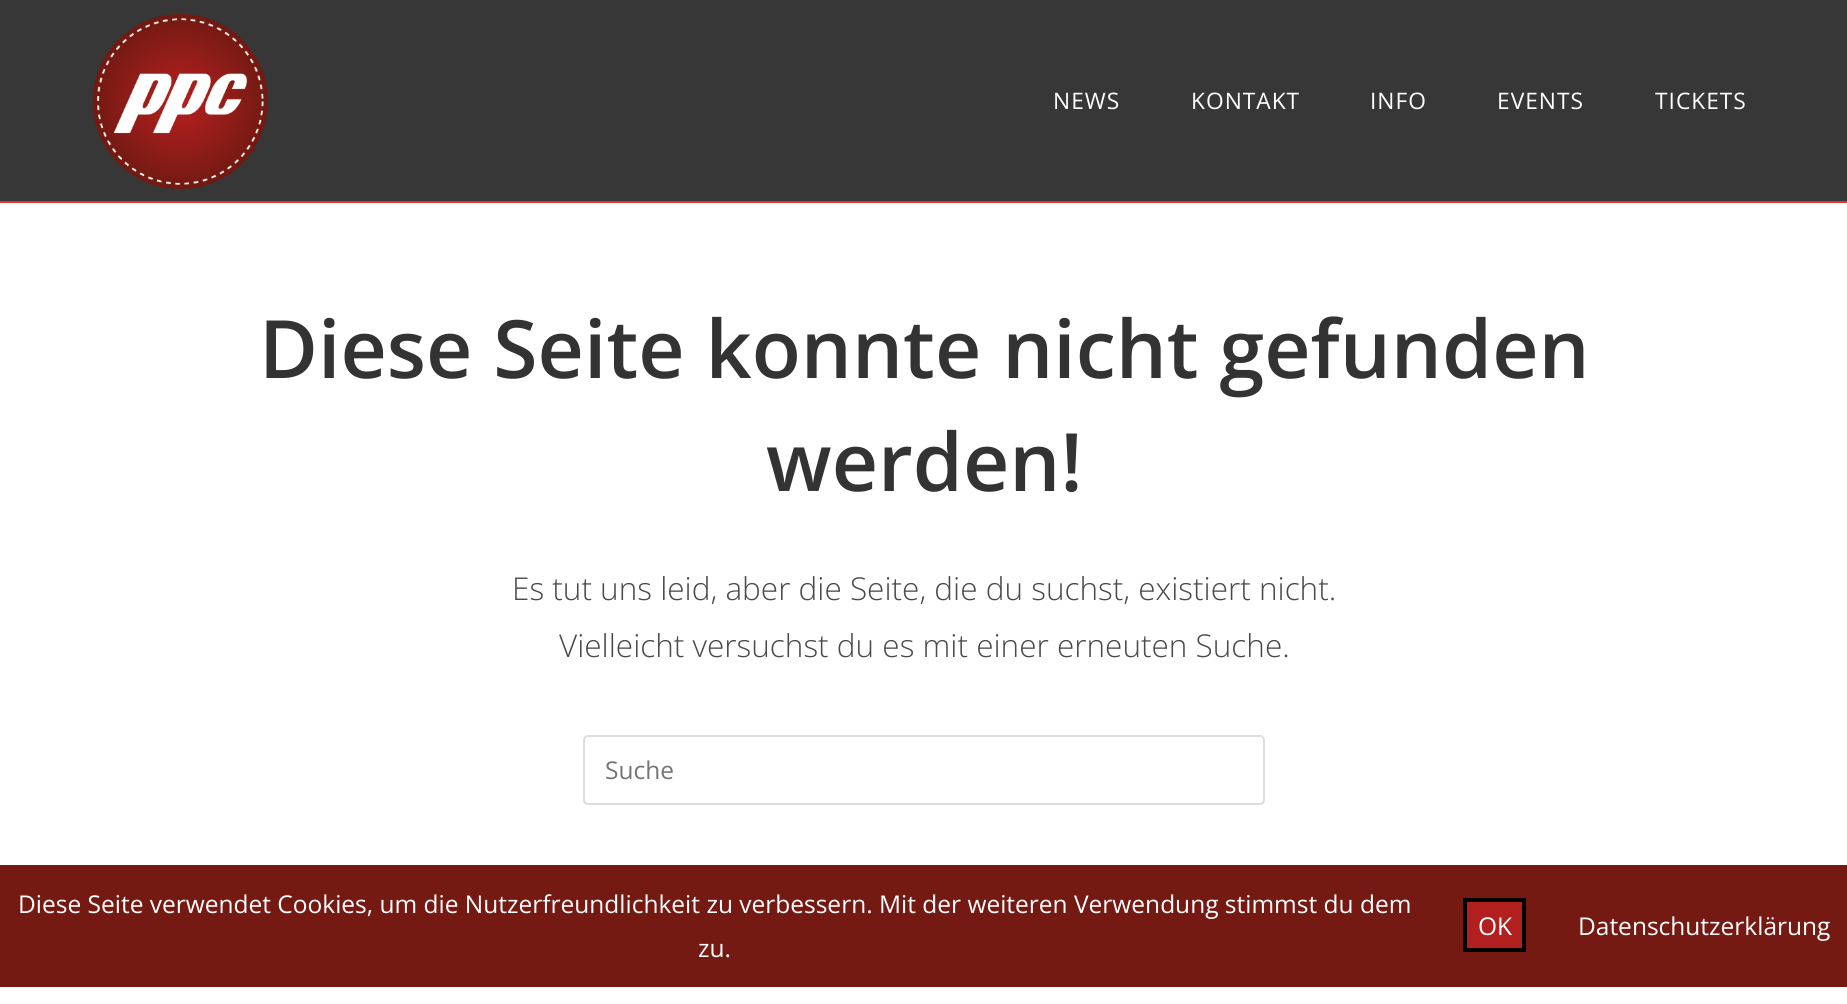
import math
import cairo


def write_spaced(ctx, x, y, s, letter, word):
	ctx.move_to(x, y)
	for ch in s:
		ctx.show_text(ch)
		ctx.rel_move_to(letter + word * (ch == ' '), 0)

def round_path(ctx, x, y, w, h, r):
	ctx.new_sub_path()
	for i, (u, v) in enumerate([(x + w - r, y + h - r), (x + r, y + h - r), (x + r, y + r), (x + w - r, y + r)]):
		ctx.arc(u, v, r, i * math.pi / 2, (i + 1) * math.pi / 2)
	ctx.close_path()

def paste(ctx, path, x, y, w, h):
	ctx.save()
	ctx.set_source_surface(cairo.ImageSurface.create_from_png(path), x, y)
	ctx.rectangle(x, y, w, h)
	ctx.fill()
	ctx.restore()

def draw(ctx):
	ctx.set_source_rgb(1, 1, 1)
	ctx.paint()
	ctx.set_source_rgb(0.216, 0.216, 0.216)
	ctx.rectangle(0, 0, 1847, 201)
	ctx.fill()
	ctx.set_source_rgb(0.867, 0.2, 0.2)
	ctx.rectangle(0, 201, 1847, 2)
	ctx.fill()
	paste(ctx, 'media/1.png', 92, 14, 176, 175)
	ctx.select_font_face('Open Sans')
	ctx.set_font_size(22.75)
	ctx.set_source_rgb(1, 1, 1)
	for x, y, s in [
		(1053, 109, 'NEWS'),
		(1191, 109, 'KONTAKT'),
		(1370, 109, 'INFO'),
		(1497, 109, 'EVENTS'),
		(1655, 109, 'TICKETS'),
	]:
		write_spaced(ctx, x, y, s, 1, 0)
	ctx.select_font_face('Open Sans SemiBold')
	ctx.set_font_size(80.5)
	ctx.set_source_rgb(0.2, 0.2, 0.2)
	ctx.move_to(259, 378)
	ctx.show_text('Diese Seite konnte nicht gefunden')
	ctx.move_to(766, 491)
	ctx.show_text('werden!')
	ctx.select_font_face('Open Sans Light')
	ctx.set_font_size(31.5)
	ctx.set_source_rgb(0.29, 0.29, 0.29)
	ctx.move_to(512, 600)
	ctx.show_text('Es tut uns leid, aber die Seite, die du suchst, existiert nicht.')
	ctx.move_to(559, 657)
	ctx.show_text('Vielleicht versuchst du es mit einer erneuten Suche.')
	round_path(ctx, 584, 736, 680, 68, 4)
	ctx.set_source_rgb(0.867, 0.867, 0.867)
	ctx.stroke()
	ctx.select_font_face('Open Sans')
	ctx.set_font_size(24.5)
	ctx.set_source_rgb(0.459, 0.459, 0.459)
	ctx.move_to(605, 779)
	ctx.show_text('Suche')
	ctx.set_source_rgb(0.459, 0.098, 0.075)
	ctx.rectangle(0, 865, 1847, 122)
	ctx.fill()
	ctx.set_source_rgb(1, 1, 1)
	ctx.move_to(18, 913)
	ctx.show_text('Diese Seite verwendet Cookies, um die Nutzerfreundlichkeit zu verbessern. Mit der weiteren Verwendung stimmst du dem')
	ctx.move_to(698, 957)
	ctx.show_text('zu.')
	ctx.set_source_rgb(0.698, 0.122, 0.122)
	ctx.rectangle(1465, 900, 59, 50)
	ctx.fill_preserve()
	ctx.set_source_rgb(0, 0, 0)
	ctx.set_line_width(4)
	ctx.stroke()
	ctx.set_source_rgb(1, 1, 1)
	ctx.move_to(1478, 935)
	ctx.show_text('OK')
	ctx.move_to(1578, 935)
	ctx.show_text('Datenschutzerklärung')


surface = cairo.ImageSurface(cairo.FORMAT_RGB24, 1847, 1004)
ctx = cairo.Context(surface)
options = cairo.FontOptions()
options.set_hint_metrics(cairo.HINT_METRICS_OFF)
options.set_hint_style(cairo.HINT_STYLE_NONE)
ctx.set_font_options(options)
ctx.set_miter_limit(4)
draw(ctx)
surface.write_to_png('image.png')
